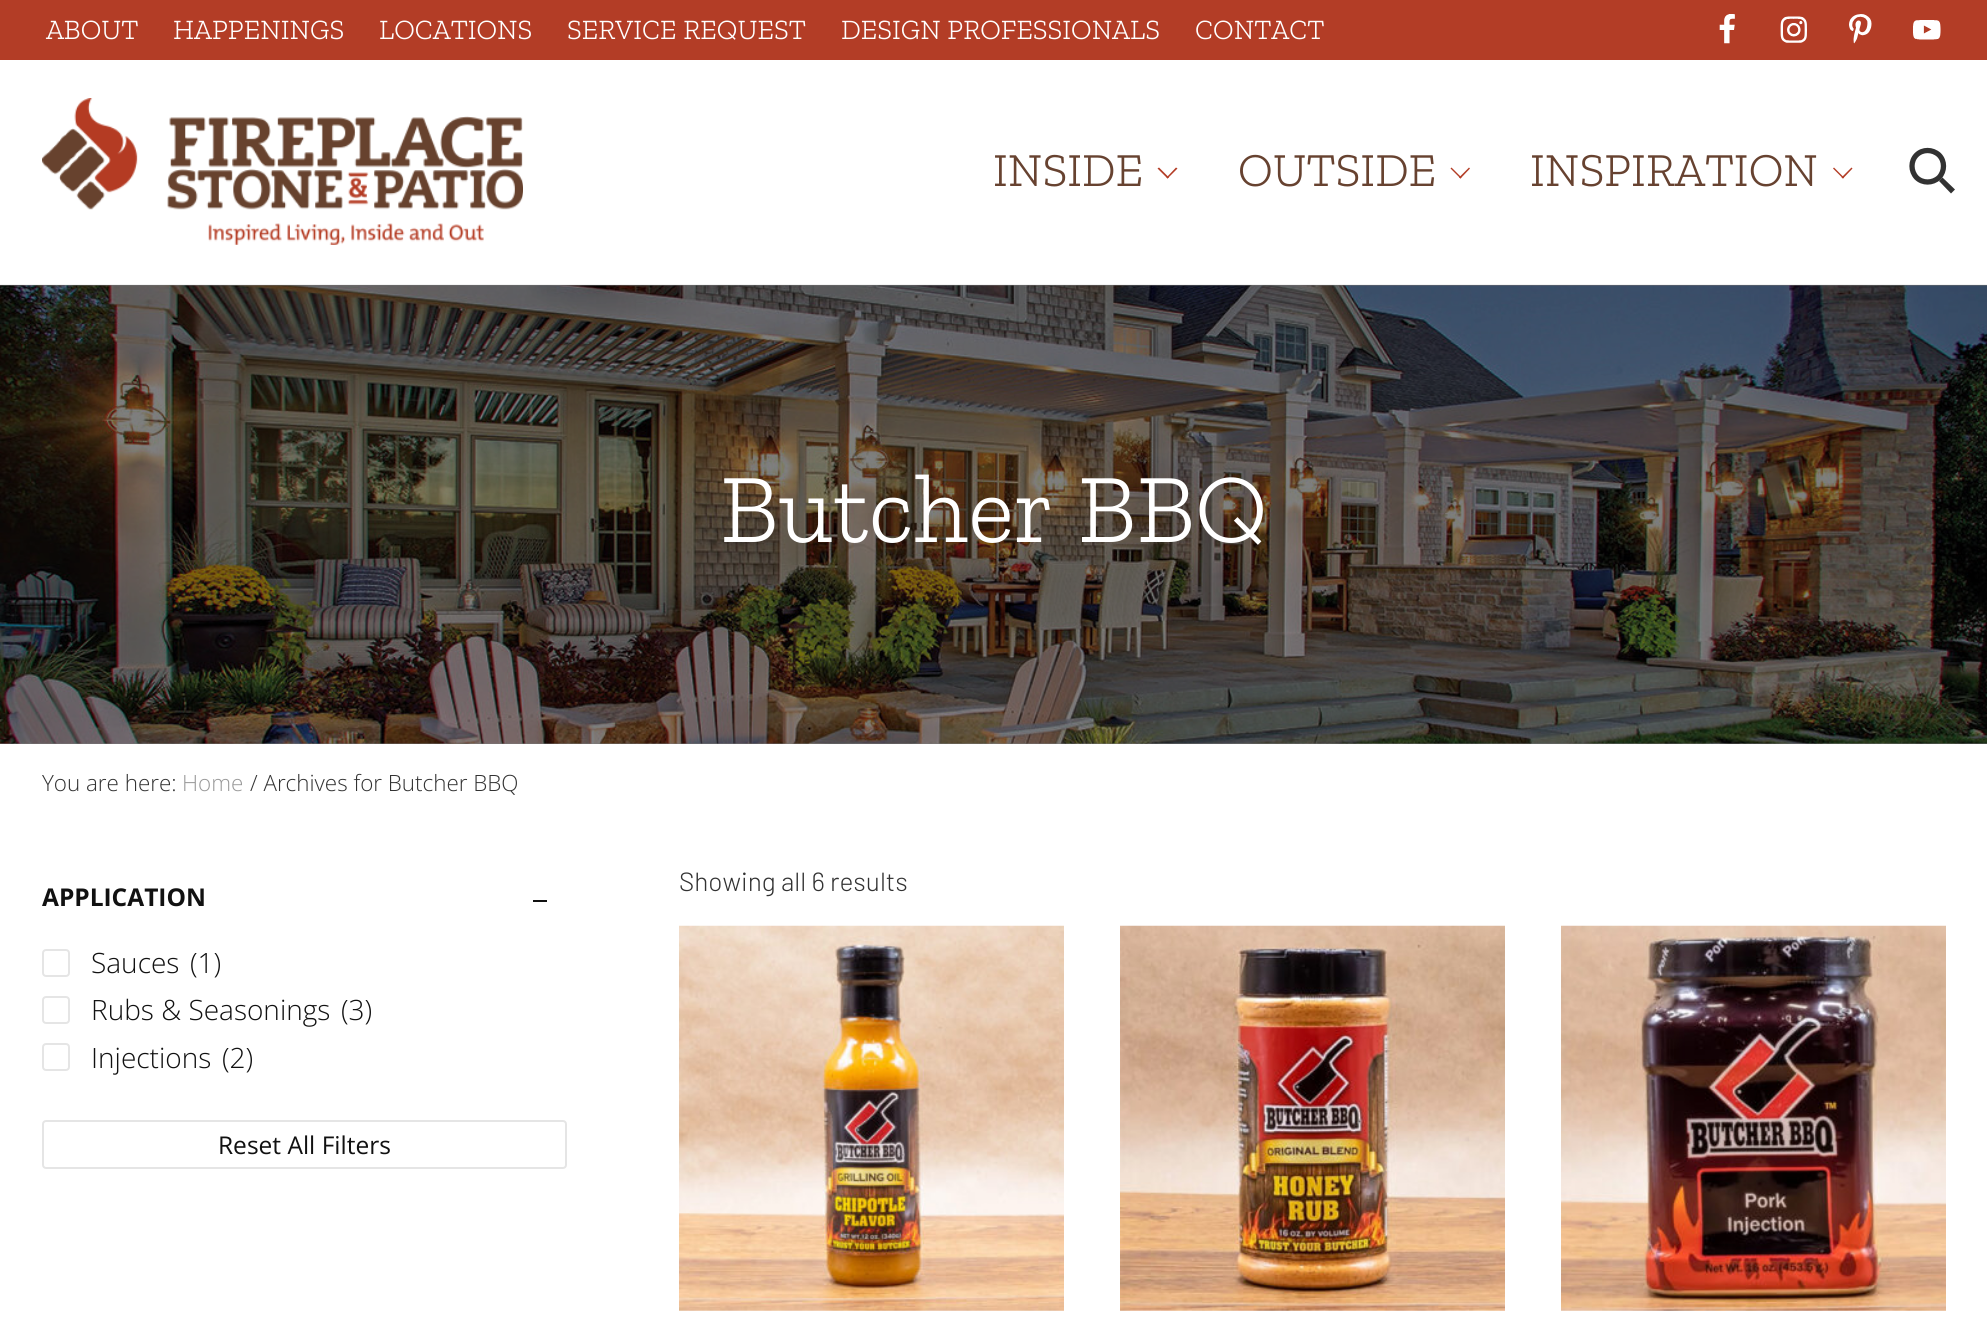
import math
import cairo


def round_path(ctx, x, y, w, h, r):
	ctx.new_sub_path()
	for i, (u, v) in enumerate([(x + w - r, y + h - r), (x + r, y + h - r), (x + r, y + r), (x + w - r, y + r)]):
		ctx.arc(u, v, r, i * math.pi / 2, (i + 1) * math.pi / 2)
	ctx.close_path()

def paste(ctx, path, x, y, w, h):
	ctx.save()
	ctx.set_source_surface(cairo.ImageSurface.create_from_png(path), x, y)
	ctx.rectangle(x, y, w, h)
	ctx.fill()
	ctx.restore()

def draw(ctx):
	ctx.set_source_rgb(1, 1, 1)
	ctx.paint()
	ctx.set_source_rgb(0.702, 0.239, 0.149)
	ctx.rectangle(0, 0, 1987, 60)
	ctx.fill()
	ctx.select_font_face('Zilla Slab Light')
	ctx.set_font_size(28)
	ctx.set_source_rgb(1, 1, 1)
	for x, y, s in [
		(46, 39, 'ABOUT'),
		(173, 39, 'HAPPENINGS'),
		(379, 39, 'LOCATIONS'),
		(567, 39, 'SERVICE REQUEST'),
		(841, 39, 'DESIGN PROFESSIONALS'),
		(1195, 39, 'CONTACT'),
	]:
		ctx.move_to(x, y)
		ctx.show_text(s)
	paste(ctx, 'media/1.png', 1719, 14, 16, 30)
	paste(ctx, 'media/2.png', 1780, 16, 27, 27)
	paste(ctx, 'media/3.png', 1849, 14, 23, 30)
	paste(ctx, 'media/4.png', 1912, 20, 29, 20)
	ctx.set_source_rgb(0.475, 0.475, 0.475)
	ctx.rectangle(0, 285, 1987, 459)
	ctx.fill()
	paste(ctx, 'media/6.png', 0, 285, 1987, 459)
	ctx.set_source_rgba(0, 0, 0, 0.05)
	ctx.rectangle(0, 284, 1987, 2)
	ctx.fill()
	paste(ctx, 'media/5.png', 42, 98, 481, 147)
	ctx.set_font_size(47.25)
	ctx.set_source_rgb(0.404, 0.259, 0.188)
	ctx.move_to(993, 186)
	ctx.show_text('INSIDE')
	ctx.set_source_rgb(0.702, 0.239, 0.149)
	ctx.new_path()
	ctx.move_to(1176, 167.5)
	ctx.line_to(1177.5, 168.5)
	ctx.line_to(1167.5, 178.5)
	ctx.line_to(1166.5, 177.5)
	ctx.close_path()
	ctx.fill()
	ctx.new_path()
	ctx.move_to(1159, 167.5)
	ctx.line_to(1169, 177.5)
	ctx.line_to(1167.5, 178.5)
	ctx.line_to(1157.5, 168.5)
	ctx.close_path()
	ctx.fill()
	ctx.set_source_rgb(0.404, 0.259, 0.188)
	ctx.move_to(1238, 186)
	ctx.show_text('OUTSIDE')
	ctx.set_source_rgb(0.702, 0.239, 0.149)
	ctx.new_path()
	ctx.move_to(1469, 167.5)
	ctx.line_to(1470, 168.5)
	ctx.line_to(1460.5, 178.5)
	ctx.line_to(1459, 177.5)
	ctx.close_path()
	ctx.fill()
	ctx.new_path()
	ctx.move_to(1451.5, 167.5)
	ctx.line_to(1461.5, 177.5)
	ctx.line_to(1460.5, 178.5)
	ctx.line_to(1450.5, 168.5)
	ctx.close_path()
	ctx.fill()
	ctx.set_source_rgb(0.404, 0.259, 0.188)
	ctx.move_to(1530, 186)
	ctx.show_text('INSPIRATION')
	ctx.set_source_rgb(0.702, 0.239, 0.149)
	ctx.new_path()
	ctx.move_to(1851.5, 167.5)
	ctx.line_to(1852.5, 168.5)
	ctx.line_to(1843, 178.5)
	ctx.line_to(1841.5, 177.5)
	ctx.close_path()
	ctx.fill()
	ctx.new_path()
	ctx.move_to(1834, 167.5)
	ctx.line_to(1844, 177.5)
	ctx.line_to(1843, 178.5)
	ctx.line_to(1833, 168.5)
	ctx.close_path()
	ctx.fill()
	ctx.new_path()
	ctx.move_to(1916.5, 155)
	ctx.curve_to(1922.5, 149, 1932.5, 149, 1939, 155)
	ctx.curve_to(1945, 161, 1945, 171, 1939, 177.5)
	ctx.curve_to(1932.5, 183.5, 1922.5, 183.5, 1916.5, 177.5)
	ctx.curve_to(1910.5, 171, 1910.5, 161, 1916.5, 155)
	ctx.close_path()
	ctx.set_source_rgb(0.196, 0.196, 0.196)
	ctx.set_line_width(5.3)
	ctx.stroke()
	ctx.new_path()
	ctx.move_to(1939, 181)
	ctx.line_to(1942.5, 177.5)
	ctx.line_to(1955, 189.5)
	ctx.line_to(1951, 193.5)
	ctx.close_path()
	ctx.fill()
	ctx.set_font_size(98)
	ctx.set_source_rgb(1, 1, 1)
	ctx.move_to(720, 542)
	ctx.show_text('Butcher BBQ')
	ctx.select_font_face('Open Sans Light')
	ctx.set_font_size(22.4)
	ctx.set_source_rgb(0.196, 0.196, 0.196)
	ctx.move_to(42, 791)
	ctx.show_text('You are here:')
	ctx.set_source_rgb(0.6, 0.6, 0.6)
	ctx.move_to(182, 791)
	ctx.show_text('Home')
	ctx.set_source_rgb(0.196, 0.196, 0.196)
	ctx.move_to(250, 791)
	ctx.show_text('/ Archives for Butcher BBQ')
	ctx.select_font_face('Barlow Light')
	ctx.set_font_size(26.25)
	ctx.move_to(679, 891)
	ctx.show_text('Showing all 6 results')
	paste(ctx, 'media/7.png', 679, 925, 385, 386)
	paste(ctx, 'media/8.png', 1120, 925, 385, 386)
	paste(ctx, 'media/9.png', 1561, 925, 385, 386)
	ctx.select_font_face('Open Sans', cairo.FONT_SLANT_NORMAL, cairo.FONT_WEIGHT_BOLD)
	ctx.set_font_size(24.5)
	ctx.set_source_rgb(0.067, 0.067, 0.067)
	ctx.move_to(42, 906)
	ctx.show_text('APPLICATION')
	ctx.rectangle(533, 900, 14, 2)
	ctx.fill()
	round_path(ctx, 43, 950, 26, 26, 3)
	ctx.set_source_rgb(0.898, 0.898, 0.898)
	ctx.set_line_width(2)
	ctx.stroke()
	ctx.select_font_face('Open Sans Light')
	ctx.set_font_size(28)
	ctx.set_source_rgb(0.067, 0.067, 0.067)
	ctx.move_to(91, 973)
	ctx.show_text('Sauces')
	ctx.move_to(190, 973)
	ctx.show_text('(1)')
	round_path(ctx, 43, 997, 26, 26, 3)
	ctx.set_source_rgb(0.898, 0.898, 0.898)
	ctx.stroke()
	ctx.set_source_rgb(0.067, 0.067, 0.067)
	ctx.move_to(91, 1020)
	ctx.show_text('Rubs & Seasonings')
	ctx.move_to(341, 1020)
	ctx.show_text('(3)')
	round_path(ctx, 43, 1044, 26, 26, 3)
	ctx.set_source_rgb(0.898, 0.898, 0.898)
	ctx.stroke()
	ctx.set_source_rgb(0.067, 0.067, 0.067)
	ctx.move_to(91, 1068)
	ctx.show_text('Injections')
	ctx.move_to(222, 1068)
	ctx.show_text('(2)')
	round_path(ctx, 43, 1121, 523, 47, 3)
	ctx.set_source_rgb(0.898, 0.898, 0.898)
	ctx.stroke()
	ctx.select_font_face('Open Sans')
	ctx.set_font_size(24.5)
	ctx.set_source_rgb(0.067, 0.067, 0.067)
	ctx.move_to(218, 1154)
	ctx.show_text('Reset All Filters')


surface = cairo.ImageSurface(cairo.FORMAT_RGB24, 1987, 1317)
ctx = cairo.Context(surface)
options = cairo.FontOptions()
options.set_hint_metrics(cairo.HINT_METRICS_OFF)
options.set_hint_style(cairo.HINT_STYLE_NONE)
ctx.set_font_options(options)
ctx.set_miter_limit(4)
draw(ctx)
surface.write_to_png('image.png')
